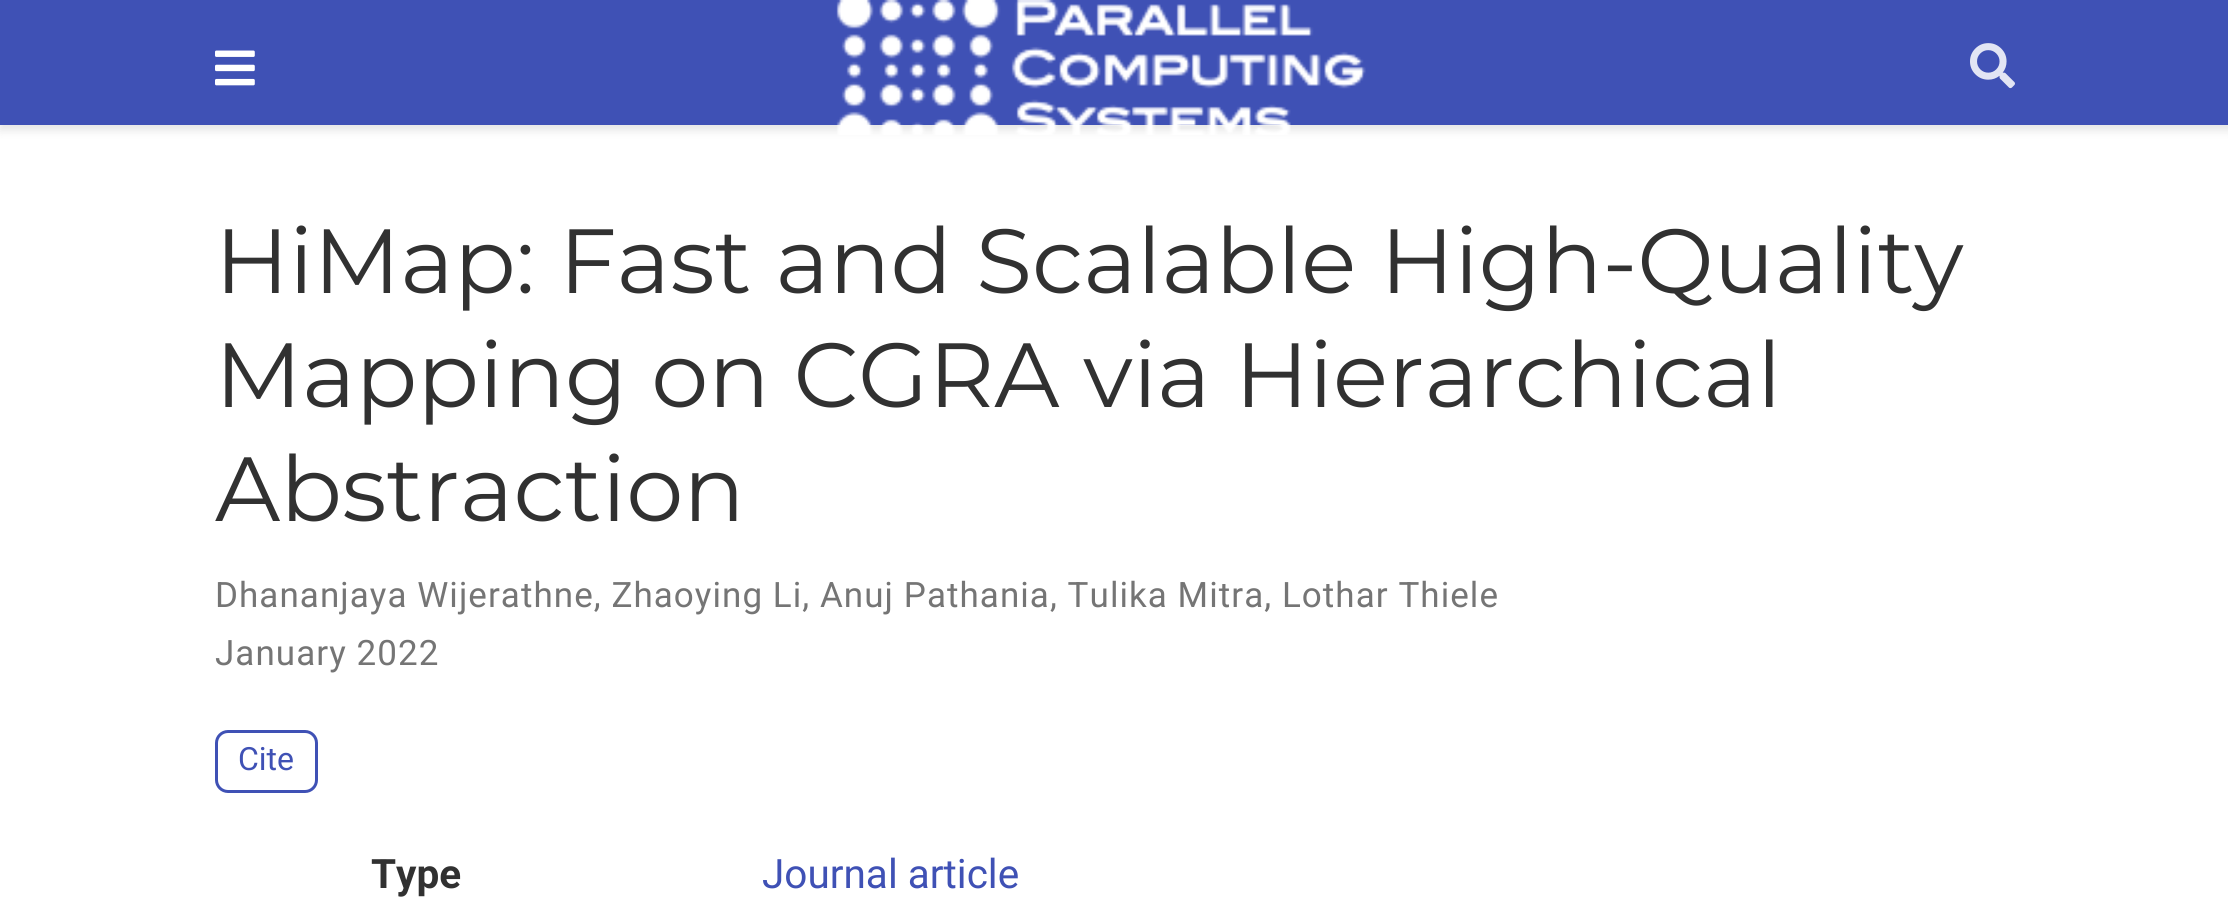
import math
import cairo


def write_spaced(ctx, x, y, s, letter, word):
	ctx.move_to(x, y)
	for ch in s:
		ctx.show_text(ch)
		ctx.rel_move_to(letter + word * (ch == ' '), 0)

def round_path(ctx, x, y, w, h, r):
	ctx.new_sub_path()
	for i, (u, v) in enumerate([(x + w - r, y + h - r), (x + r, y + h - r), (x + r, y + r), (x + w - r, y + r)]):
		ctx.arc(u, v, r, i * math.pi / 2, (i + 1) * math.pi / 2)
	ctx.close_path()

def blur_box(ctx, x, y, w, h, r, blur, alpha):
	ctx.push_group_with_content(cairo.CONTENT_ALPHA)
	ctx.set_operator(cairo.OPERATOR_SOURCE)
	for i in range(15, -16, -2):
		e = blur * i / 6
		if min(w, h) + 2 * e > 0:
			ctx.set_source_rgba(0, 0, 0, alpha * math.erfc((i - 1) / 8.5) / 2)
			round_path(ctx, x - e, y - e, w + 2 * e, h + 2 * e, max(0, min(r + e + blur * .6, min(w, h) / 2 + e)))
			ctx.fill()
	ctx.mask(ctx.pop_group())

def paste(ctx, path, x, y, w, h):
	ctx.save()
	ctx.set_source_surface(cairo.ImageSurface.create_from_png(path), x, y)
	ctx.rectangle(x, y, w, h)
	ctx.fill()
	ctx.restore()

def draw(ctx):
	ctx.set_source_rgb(1, 1, 1)
	ctx.paint()
	ctx.set_source_rgb(0, 0, 0)
	blur_box(ctx, 0, 5, 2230, 125, 0, 5, 0.11)
	ctx.set_source_rgb(0.247, 0.318, 0.71)
	ctx.rectangle(0, 0, 2228, 125)
	ctx.fill()
	paste(ctx, 'media/1.png', 215, 50, 40, 36)
	paste(ctx, 'media/2.png', 836, 0, 530, 135)
	paste(ctx, 'media/3.png', 1970, 43, 45, 46)
	ctx.select_font_face('Montserrat')
	ctx.set_font_size(91)
	ctx.set_source_rgb(0.192, 0.192, 0.192)
	for x, y, s in [
		(215, 293, 'HiMap: Fast and Scalable High-Quality'),
		(215, 407, 'Mapping on CGRA via Hierarchical'),
		(215, 521, 'Abstraction'),
	]:
		ctx.move_to(x, y)
		ctx.show_text(s)
	ctx.select_font_face('Roboto')
	ctx.set_font_size(35)
	ctx.set_source_rgb(0.459, 0.459, 0.459)
	write_spaced(ctx, 215, 607, 'Dhananjaya Wijerathne, Zhaoying Li, Anuj Pathania, Tulika Mitra, Lothar Thiele', 1.05, 0)
	write_spaced(ctx, 215, 665, 'January 2022', 1.05, 0)
	round_path(ctx, 216.5, 731.5, 100, 60, 11.5)
	ctx.set_source_rgb(0.247, 0.318, 0.71)
	ctx.set_line_width(3)
	ctx.stroke()
	ctx.set_font_size(32)
	ctx.move_to(238, 770)
	ctx.show_text('Cite')
	ctx.select_font_face('Roboto', cairo.FONT_SLANT_NORMAL, cairo.FONT_WEIGHT_BOLD)
	ctx.set_font_size(40.5)
	ctx.set_source_rgb(0.192, 0.192, 0.192)
	ctx.move_to(371, 888)
	ctx.show_text('Type')
	ctx.select_font_face('Roboto')
	ctx.set_source_rgb(0.247, 0.318, 0.71)
	ctx.move_to(762, 888)
	ctx.show_text('Journal article')


surface = cairo.ImageSurface(cairo.FORMAT_RGB24, 2228, 922)
ctx = cairo.Context(surface)
options = cairo.FontOptions()
options.set_hint_metrics(cairo.HINT_METRICS_OFF)
options.set_hint_style(cairo.HINT_STYLE_NONE)
ctx.set_font_options(options)
ctx.set_miter_limit(4)
draw(ctx)
surface.write_to_png('image.png')
